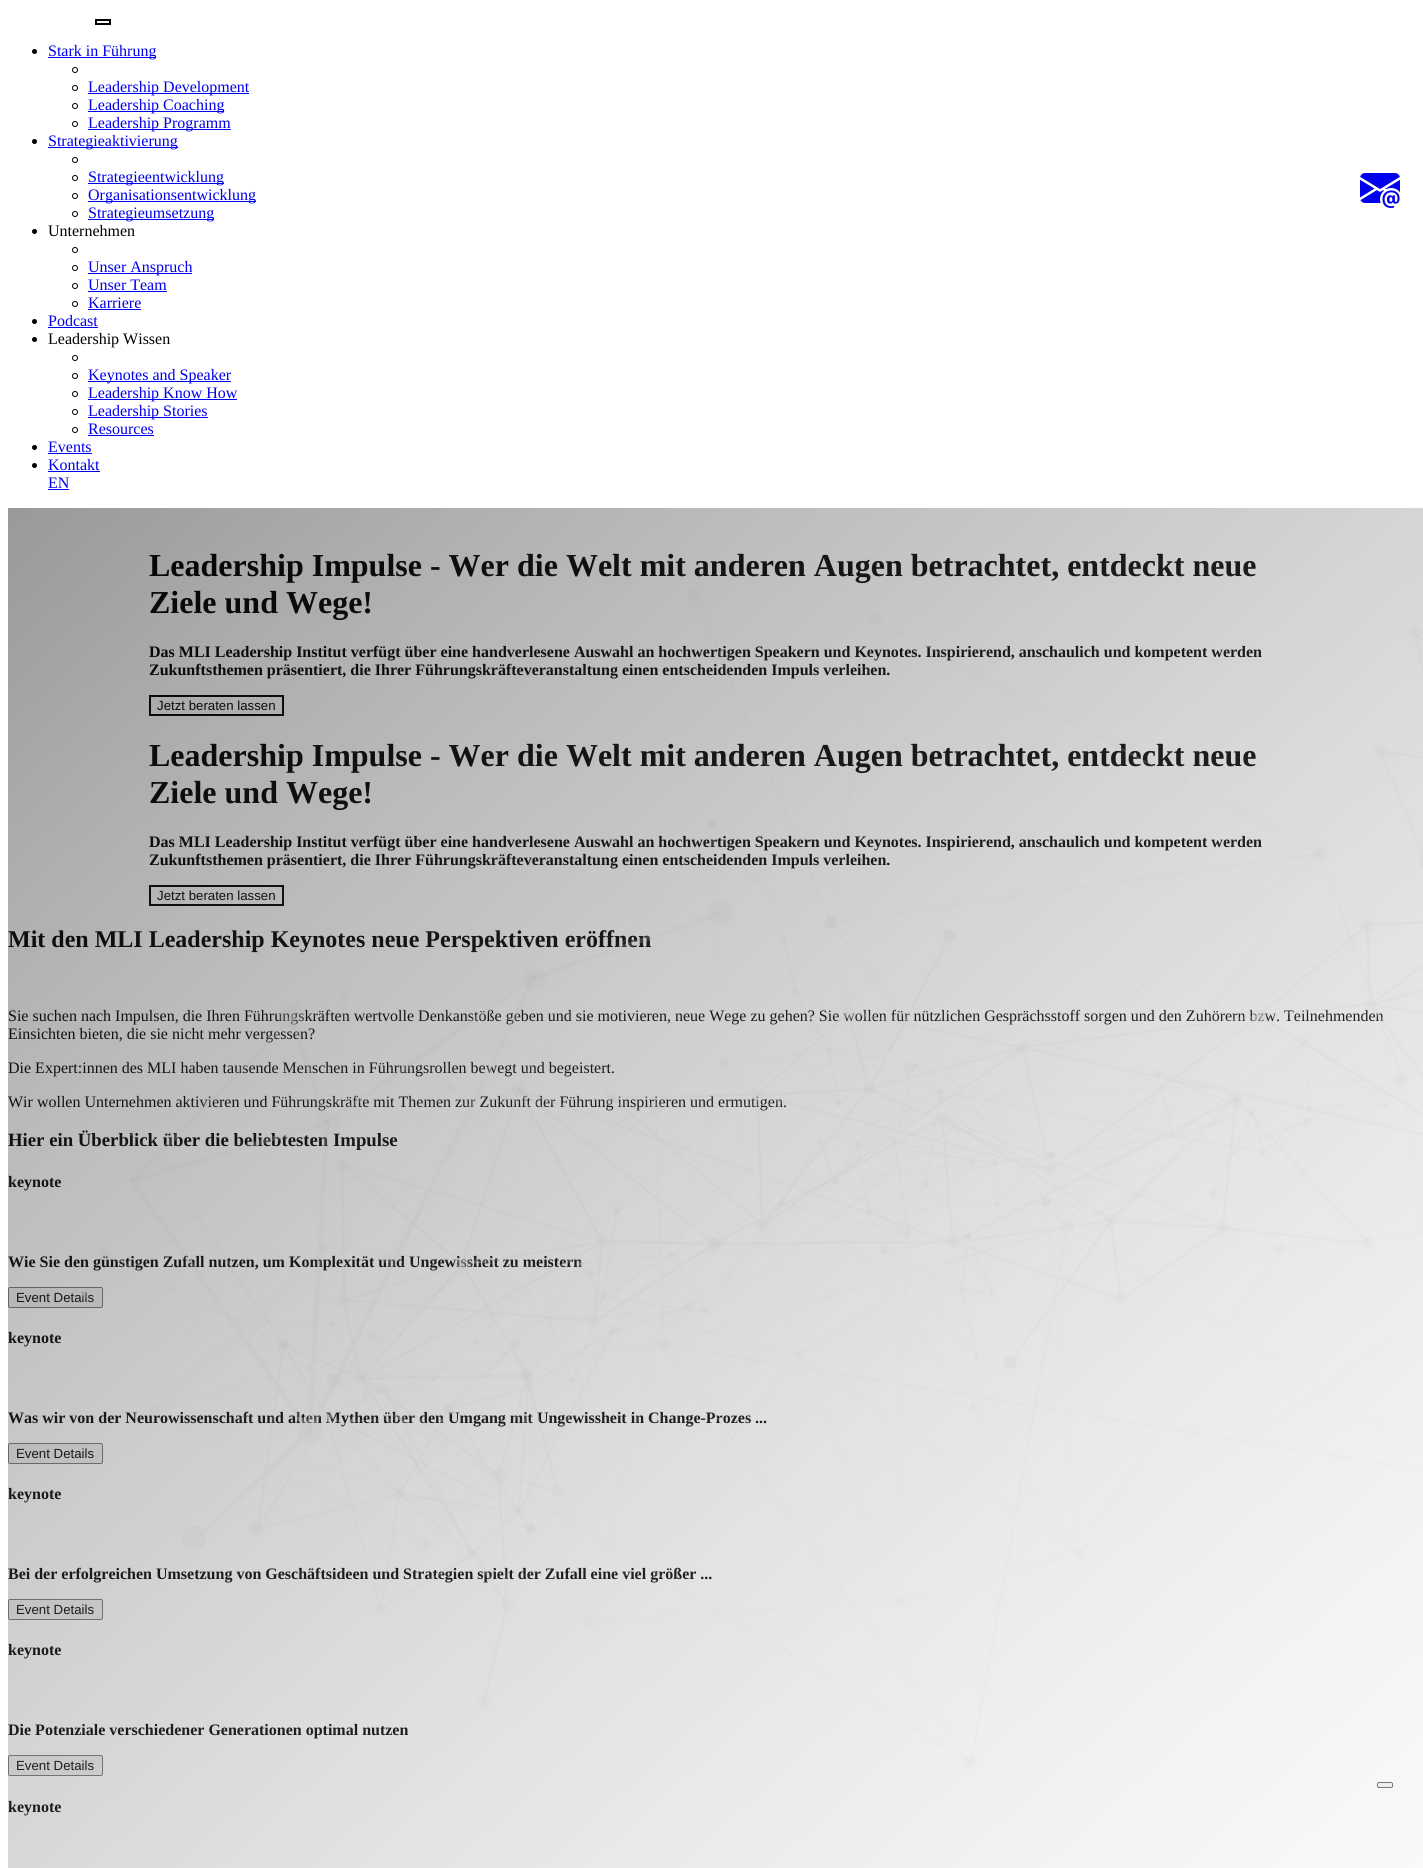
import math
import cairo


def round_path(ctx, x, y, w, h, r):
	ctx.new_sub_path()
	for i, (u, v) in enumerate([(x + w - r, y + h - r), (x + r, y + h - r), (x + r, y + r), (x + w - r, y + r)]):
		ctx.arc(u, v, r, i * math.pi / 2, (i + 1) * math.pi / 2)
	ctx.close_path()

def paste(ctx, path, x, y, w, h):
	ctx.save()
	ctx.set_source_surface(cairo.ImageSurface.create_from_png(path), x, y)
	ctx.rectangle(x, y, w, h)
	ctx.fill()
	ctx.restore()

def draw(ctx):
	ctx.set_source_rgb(1, 1, 1)
	ctx.paint()
	ctx.rectangle(96, 20, 14, 4)
	ctx.set_source_rgb(0, 0, 0)
	ctx.stroke()
	ctx.arc(34.5, 51.5, 2.5, 0, 2 * math.pi)
	ctx.fill()
	ctx.set_source_rgb(0, 0, 0.933)
	ctx.rectangle(48, 57, 108, 1)
	ctx.fill()
	ctx.select_font_face('Liberation Serif')
	ctx.set_font_size(16)
	ctx.move_to(48, 56)
	ctx.show_text('Stark in Führung')
	ctx.new_path()
	ctx.arc(75, 70, 2.5, 0, 2 * math.pi)
	ctx.set_source_rgb(0, 0, 0)
	ctx.set_line_width(1)
	ctx.stroke()
	ctx.arc(75, 88, 2.5, 0, 2 * math.pi)
	ctx.stroke()
	ctx.set_source_rgb(0, 0, 0.933)
	ctx.rectangle(88, 93, 161, 1)
	ctx.fill()
	ctx.move_to(88, 92)
	ctx.show_text('Leadership Development')
	ctx.new_path()
	ctx.arc(75, 106, 2.5, 0, 2 * math.pi)
	ctx.set_source_rgb(0, 0, 0)
	ctx.stroke()
	ctx.set_source_rgb(0, 0, 0.933)
	ctx.rectangle(88, 111, 136, 1)
	ctx.fill()
	ctx.move_to(88, 110)
	ctx.show_text('Leadership Coaching')
	ctx.new_path()
	ctx.arc(75, 124, 2.5, 0, 2 * math.pi)
	ctx.set_source_rgb(0, 0, 0)
	ctx.stroke()
	ctx.set_source_rgb(0, 0, 0.933)
	ctx.rectangle(88, 129, 143, 1)
	ctx.fill()
	ctx.move_to(88, 128)
	ctx.show_text('Leadership Programm')
	ctx.set_source_rgb(0, 0, 0)
	ctx.new_path()
	ctx.arc(34.5, 141.5, 2.5, 0, 2 * math.pi)
	ctx.fill()
	ctx.set_source_rgb(0, 0, 0.933)
	ctx.rectangle(48, 147, 130, 1)
	ctx.fill()
	ctx.move_to(48, 146)
	ctx.show_text('Strategieaktivierung')
	ctx.new_path()
	ctx.arc(75, 160, 2.5, 0, 2 * math.pi)
	ctx.set_source_rgb(0, 0, 0)
	ctx.stroke()
	ctx.arc(75, 178, 2.5, 0, 2 * math.pi)
	ctx.stroke()
	ctx.set_source_rgb(0, 0, 0.933)
	ctx.rectangle(88, 183, 136, 1)
	ctx.fill()
	ctx.move_to(88, 182)
	ctx.show_text('Strategieentwicklung')
	ctx.new_path()
	ctx.arc(75, 196, 2.5, 0, 2 * math.pi)
	ctx.set_source_rgb(0, 0, 0)
	ctx.stroke()
	ctx.set_source_rgb(0, 0, 0.933)
	ctx.rectangle(88, 201, 168, 1)
	ctx.fill()
	ctx.move_to(88, 200)
	ctx.show_text('Organisationsentwicklung')
	ctx.new_path()
	ctx.arc(75, 214, 2.5, 0, 2 * math.pi)
	ctx.set_source_rgb(0, 0, 0)
	ctx.stroke()
	ctx.set_source_rgb(0, 0, 0.933)
	ctx.rectangle(88, 219, 126, 1)
	ctx.fill()
	ctx.move_to(88, 218)
	ctx.show_text('Strategieumsetzung')
	ctx.set_source_rgb(0, 0, 0)
	ctx.new_path()
	ctx.arc(34.5, 231.5, 2.5, 0, 2 * math.pi)
	ctx.fill()
	ctx.move_to(48, 236)
	ctx.show_text('Unternehmen')
	ctx.new_path()
	ctx.arc(75, 250, 2.5, 0, 2 * math.pi)
	ctx.stroke()
	ctx.arc(75, 268, 2.5, 0, 2 * math.pi)
	ctx.stroke()
	ctx.set_source_rgb(0, 0, 0.933)
	ctx.rectangle(88, 273, 104, 1)
	ctx.fill()
	ctx.move_to(88, 272)
	ctx.show_text('Unser Anspruch')
	ctx.new_path()
	ctx.arc(75, 286, 2.5, 0, 2 * math.pi)
	ctx.set_source_rgb(0, 0, 0)
	ctx.stroke()
	ctx.set_source_rgb(0, 0, 0.933)
	ctx.move_to(88, 290)
	ctx.show_text('Unser Team')
	ctx.rectangle(88, 291, 79, 1)
	ctx.fill()
	ctx.arc(75, 304, 2.5, 0, 2 * math.pi)
	ctx.set_source_rgb(0, 0, 0)
	ctx.stroke()
	ctx.set_source_rgb(0, 0, 0.933)
	ctx.move_to(88, 308)
	ctx.show_text('Karriere')
	ctx.rectangle(88, 309, 53, 1)
	ctx.fill()
	ctx.set_source_rgb(0, 0, 0)
	ctx.arc(34.5, 321.5, 2.5, 0, 2 * math.pi)
	ctx.fill()
	ctx.set_source_rgb(0, 0, 0.933)
	ctx.move_to(48, 326)
	ctx.show_text('Podcast')
	ctx.rectangle(48, 327, 50, 1)
	ctx.fill()
	ctx.set_source_rgb(0, 0, 0)
	ctx.arc(34.5, 339.5, 2.5, 0, 2 * math.pi)
	ctx.fill()
	ctx.move_to(48, 344)
	ctx.show_text('Leadership Wissen')
	ctx.new_path()
	ctx.arc(75, 358, 2.5, 0, 2 * math.pi)
	ctx.stroke()
	ctx.arc(75, 376, 2.5, 0, 2 * math.pi)
	ctx.stroke()
	ctx.set_source_rgb(0, 0, 0.933)
	ctx.rectangle(88, 381, 143, 1)
	ctx.fill()
	ctx.move_to(88, 380)
	ctx.show_text('Keynotes and Speaker')
	ctx.new_path()
	ctx.arc(75, 394, 2.5, 0, 2 * math.pi)
	ctx.set_source_rgb(0, 0, 0)
	ctx.stroke()
	ctx.set_source_rgb(0, 0, 0.933)
	ctx.rectangle(88, 399, 149, 1)
	ctx.fill()
	ctx.move_to(88, 398)
	ctx.show_text('Leadership Know How')
	ctx.new_path()
	ctx.arc(75, 412, 2.5, 0, 2 * math.pi)
	ctx.set_source_rgb(0, 0, 0)
	ctx.stroke()
	ctx.set_source_rgb(0, 0, 0.933)
	ctx.rectangle(88, 417, 120, 1)
	ctx.fill()
	ctx.move_to(88, 416)
	ctx.show_text('Leadership Stories')
	ctx.new_path()
	ctx.arc(75, 430, 2.5, 0, 2 * math.pi)
	ctx.set_source_rgb(0, 0, 0)
	ctx.stroke()
	ctx.set_source_rgb(0, 0, 0.933)
	ctx.move_to(88, 434)
	ctx.show_text('Resources')
	ctx.rectangle(88, 435, 66, 1)
	ctx.fill()
	ctx.set_source_rgb(0, 0, 0)
	ctx.arc(34.5, 447.5, 2.5, 0, 2 * math.pi)
	ctx.fill()
	ctx.set_source_rgb(0, 0, 0.933)
	ctx.move_to(48, 452)
	ctx.show_text('Events')
	ctx.rectangle(48, 453, 44, 1)
	ctx.fill()
	ctx.set_source_rgb(0, 0, 0)
	ctx.arc(34.5, 465.5, 2.5, 0, 2 * math.pi)
	ctx.fill()
	ctx.set_source_rgb(0, 0, 0.933)
	ctx.move_to(48, 470)
	ctx.show_text('Kontakt')
	ctx.rectangle(48, 471, 52, 1)
	ctx.fill()
	ctx.move_to(48, 488)
	ctx.show_text('EN')
	ctx.rectangle(48, 489, 21, 1)
	ctx.fill()
	paste(ctx, 'media/1.png', 1360, 173, 40, 35)
	ctx.select_font_face('Liberation Serif', cairo.FONT_SLANT_NORMAL, cairo.FONT_WEIGHT_BOLD)
	ctx.set_font_size(32)
	ctx.set_source_rgb(0, 0, 0)
	ctx.move_to(149, 576)
	ctx.show_text('Leadership Impulse - Wer die Welt mit anderen Augen betrachtet, entdeckt neue')
	ctx.move_to(149, 613)
	ctx.show_text('Ziele und Wege!')
	ctx.set_font_size(16)
	ctx.move_to(149, 657)
	ctx.show_text('Das MLI Leadership Institut verfügt über eine handverlesene Auswahl an hochwertigen Speakern und Keynotes. Inspirierend, anschaulich und kompetent werden')
	ctx.move_to(149, 675)
	ctx.show_text('Zukunftsthemen präsentiert, die Ihrer Führungskräfteveranstaltung einen entscheidenden Impuls verleihen.')
	ctx.rectangle(150, 696, 133, 19)
	ctx.set_line_width(2)
	ctx.stroke()
	ctx.select_font_face('Liberation Sans')
	ctx.set_font_size(13.25)
	ctx.move_to(157, 710)
	ctx.show_text('Jetzt beraten lassen')
	ctx.select_font_face('Liberation Serif', cairo.FONT_SLANT_NORMAL, cairo.FONT_WEIGHT_BOLD)
	ctx.set_font_size(32)
	ctx.move_to(149, 766)
	ctx.show_text('Leadership Impulse - Wer die Welt mit anderen Augen betrachtet, entdeckt neue')
	ctx.move_to(149, 803)
	ctx.show_text('Ziele und Wege!')
	ctx.set_font_size(16)
	ctx.move_to(149, 847)
	ctx.show_text('Das MLI Leadership Institut verfügt über eine handverlesene Auswahl an hochwertigen Speakern und Keynotes. Inspirierend, anschaulich und kompetent werden')
	ctx.move_to(149, 865)
	ctx.show_text('Zukunftsthemen präsentiert, die Ihrer Führungskräfteveranstaltung einen entscheidenden Impuls verleihen.')
	ctx.rectangle(150, 886, 133, 19)
	ctx.stroke()
	ctx.select_font_face('Liberation Sans')
	ctx.set_font_size(13.25)
	ctx.move_to(157, 900)
	ctx.show_text('Jetzt beraten lassen')
	ctx.select_font_face('Liberation Serif', cairo.FONT_SLANT_NORMAL, cairo.FONT_WEIGHT_BOLD)
	ctx.set_font_size(24)
	ctx.move_to(8, 947)
	ctx.show_text('Mit den MLI Leadership Keynotes neue Perspektiven eröffnen')
	ctx.select_font_face('Liberation Serif')
	ctx.set_font_size(16)
	for x, y, s in [
		(8, 1021, 'Sie suchen nach Impulsen, die Ihren Führungskräften wertvolle Denkanstöße geben und sie motivieren, neue Wege zu gehen? Sie wollen für nützlichen Gesprächsstoff sorgen und den Zuhörern bzw. Teilnehmenden'),
		(8, 1039, 'Einsichten bieten, die sie nicht mehr vergessen?'),
		(8, 1073, 'Die Expert:innen des MLI haben tausende Menschen in Führungsrollen bewegt und begeistert.'),
		(8, 1107, 'Wir wollen Unternehmen aktivieren und Führungskräfte mit Themen zur Zukunft der Führung inspirieren und ermutigen.'),
	]:
		ctx.move_to(x, y)
		ctx.show_text(s)
	ctx.select_font_face('Liberation Serif', cairo.FONT_SLANT_NORMAL, cairo.FONT_WEIGHT_BOLD)
	ctx.set_font_size(18.75)
	ctx.move_to(8, 1146)
	ctx.show_text('Hier ein Überblick über die beliebtesten Impulse')
	ctx.set_font_size(16)
	ctx.move_to(8, 1267)
	ctx.show_text('Wie Sie den günstigen Zufall nutzen, um Komplexität und Ungewissheit zu meistern')
	ctx.set_source_rgb(0.937, 0.937, 0.937)
	round_path(ctx, 8.5, 1287.5, 94, 20, 1.5)
	ctx.fill_preserve()
	ctx.set_source_rgb(0.463, 0.463, 0.463)
	ctx.set_line_width(1)
	ctx.stroke()
	ctx.select_font_face('Liberation Sans')
	ctx.set_font_size(13.25)
	ctx.set_source_rgb(0, 0, 0)
	ctx.move_to(16, 1302)
	ctx.show_text('Event Details')
	ctx.select_font_face('Liberation Serif', cairo.FONT_SLANT_NORMAL, cairo.FONT_WEIGHT_BOLD)
	ctx.set_font_size(16)
	ctx.move_to(8, 1423)
	ctx.show_text('Was wir von der Neurowissenschaft und alten Mythen über den Umgang mit Ungewissheit in Change-Prozes ...')
	ctx.set_source_rgb(0.937, 0.937, 0.937)
	round_path(ctx, 8.5, 1443.5, 94, 20, 1.5)
	ctx.fill_preserve()
	ctx.set_source_rgb(0.463, 0.463, 0.463)
	ctx.stroke()
	ctx.select_font_face('Liberation Sans')
	ctx.set_font_size(13.25)
	ctx.set_source_rgb(0, 0, 0)
	ctx.move_to(16, 1458)
	ctx.show_text('Event Details')
	ctx.select_font_face('Liberation Serif', cairo.FONT_SLANT_NORMAL, cairo.FONT_WEIGHT_BOLD)
	ctx.set_font_size(16)
	ctx.move_to(8, 1579)
	ctx.show_text('Bei der erfolgreichen Umsetzung von Geschäftsideen und Strategien spielt der Zufall eine viel größer ...')
	ctx.set_source_rgb(0.937, 0.937, 0.937)
	round_path(ctx, 8.5, 1599.5, 94, 20, 1.5)
	ctx.fill_preserve()
	ctx.set_source_rgb(0.463, 0.463, 0.463)
	ctx.stroke()
	ctx.select_font_face('Liberation Sans')
	ctx.set_font_size(13.25)
	ctx.set_source_rgb(0, 0, 0)
	ctx.move_to(16, 1614)
	ctx.show_text('Event Details')
	ctx.select_font_face('Liberation Serif', cairo.FONT_SLANT_NORMAL, cairo.FONT_WEIGHT_BOLD)
	ctx.set_font_size(16)
	ctx.move_to(8, 1735)
	ctx.show_text('Die Potenziale verschiedener Generationen optimal nutzen')
	ctx.set_source_rgb(0.937, 0.937, 0.937)
	round_path(ctx, 8.5, 1755.5, 94, 20, 1.5)
	ctx.fill_preserve()
	ctx.set_source_rgb(0.463, 0.463, 0.463)
	ctx.stroke()
	ctx.select_font_face('Liberation Sans')
	ctx.set_font_size(13.25)
	ctx.set_source_rgb(0, 0, 0)
	ctx.move_to(16, 1770)
	ctx.show_text('Event Details')
	paste(ctx, 'media/2.png', 79, 588, 1344, 1181)
	ctx.select_font_face('Liberation Serif', cairo.FONT_SLANT_NORMAL, cairo.FONT_WEIGHT_BOLD)
	ctx.set_font_size(16)
	for x, y, s in [
		(8, 1187, 'keynote'),
		(8, 1343, 'keynote'),
		(8, 1499, 'keynote'),
		(8, 1655, 'keynote'),
		(8, 1812, 'keynote'),
	]:
		ctx.move_to(x, y)
		ctx.show_text(s)
	gradient = cairo.LinearGradient(-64, 572, 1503, 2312)
	gradient.add_color_stop_rgba(0, 0, 0, 0, 0.4)
	gradient.add_color_stop_rgba(1, 1, 1, 1, 0.1)
	ctx.set_source(gradient)
	ctx.rectangle(8, 508, 1415, 1360)
	ctx.fill()
	ctx.set_source_rgb(0.937, 0.937, 0.937)
	round_path(ctx, 1377.5, 1782.5, 15, 5, 1.5)
	ctx.fill_preserve()
	ctx.set_source_rgb(0.463, 0.463, 0.463)
	ctx.stroke()


surface = cairo.ImageSurface(cairo.FORMAT_RGB24, 1423, 1868)
ctx = cairo.Context(surface)
options = cairo.FontOptions()
options.set_hint_metrics(cairo.HINT_METRICS_OFF)
options.set_hint_style(cairo.HINT_STYLE_NONE)
ctx.set_font_options(options)
ctx.set_miter_limit(4)
draw(ctx)
surface.write_to_png('image.png')
